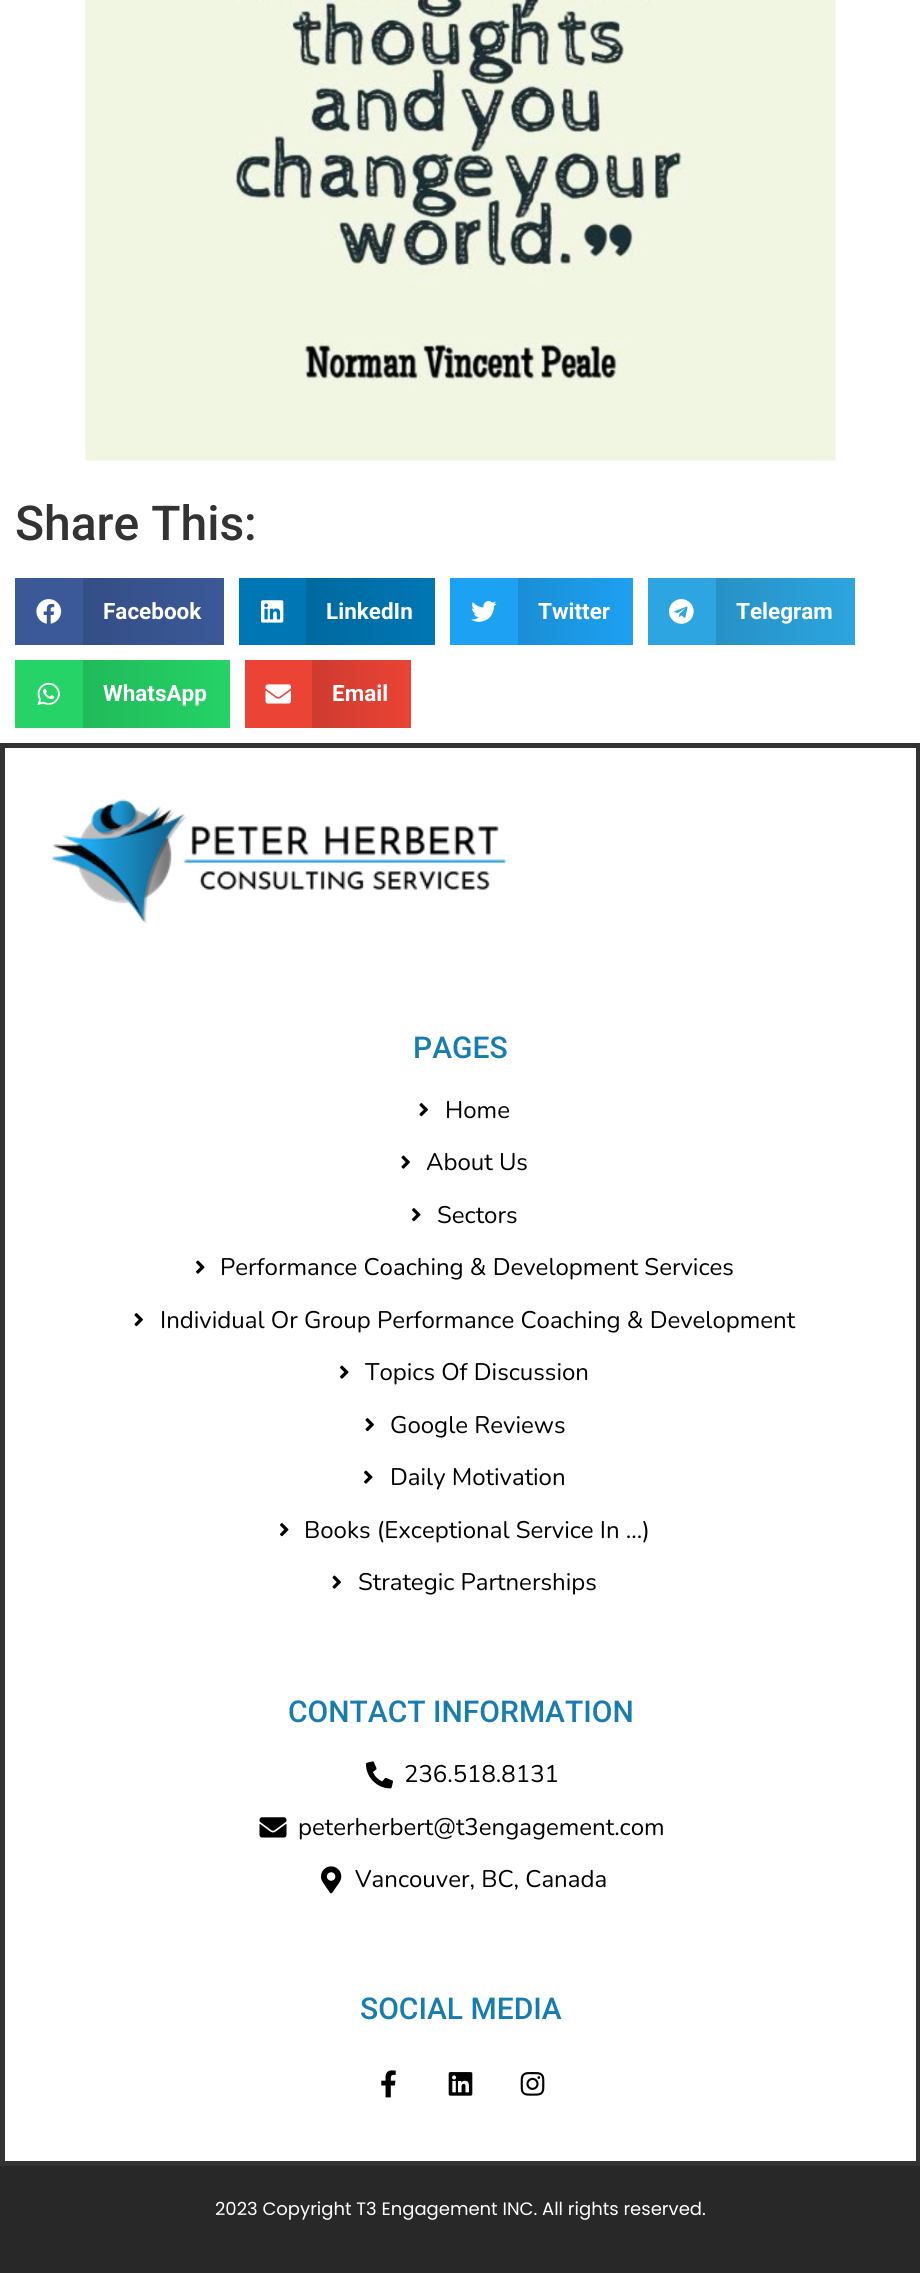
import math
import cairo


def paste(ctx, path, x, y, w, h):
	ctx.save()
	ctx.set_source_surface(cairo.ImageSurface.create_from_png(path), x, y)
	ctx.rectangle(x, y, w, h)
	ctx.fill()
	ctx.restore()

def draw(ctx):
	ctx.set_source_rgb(1, 1, 1)
	ctx.paint()
	paste(ctx, 'media/1.png', 85, 0, 751, 461)
	ctx.select_font_face('Roboto Medium')
	ctx.set_font_size(48)
	ctx.set_source_rgb(0.2, 0.2, 0.2)
	ctx.move_to(15, 540)
	ctx.show_text('Share This:')
	ctx.set_source_rgb(0.231, 0.349, 0.596)
	ctx.rectangle(15, 578, 68, 67)
	ctx.fill()
	paste(ctx, 'media/2.png', 36, 599, 26, 25)
	gradient = cairo.LinearGradient(83, 611, 224, 611)
	gradient.add_color_stop_rgba(0, 0.204, 0.306, 0.525, 1)
	gradient.add_color_stop_rgba(1, 0.231, 0.349, 0.596, 1)
	ctx.set_source(gradient)
	ctx.rectangle(83, 578, 141, 67)
	ctx.fill()
	ctx.select_font_face('Roboto', cairo.FONT_SLANT_NORMAL, cairo.FONT_WEIGHT_BOLD)
	ctx.set_font_size(22.5)
	ctx.set_source_rgb(1, 1, 1)
	ctx.move_to(103, 619)
	ctx.show_text('Facebook')
	ctx.set_source_rgb(0, 0.467, 0.71)
	ctx.rectangle(239, 578, 67, 67)
	ctx.fill()
	paste(ctx, 'media/3.png', 261, 600, 23, 23)
	gradient = cairo.LinearGradient(306, 611, 435, 611)
	gradient.add_color_stop_rgba(0, 0, 0.412, 0.624, 1)
	gradient.add_color_stop_rgba(1, 0, 0.467, 0.71, 1)
	ctx.set_source(gradient)
	ctx.rectangle(306, 578, 129, 67)
	ctx.fill()
	ctx.set_source_rgb(1, 1, 1)
	ctx.move_to(326, 619)
	ctx.show_text('LinkedIn')
	ctx.set_source_rgb(0.114, 0.631, 0.949)
	ctx.rectangle(450, 578, 68, 67)
	ctx.fill()
	paste(ctx, 'media/4.png', 471, 601, 26, 21)
	gradient = cairo.LinearGradient(518, 611, 633, 611)
	gradient.add_color_stop_rgba(0, 0.102, 0.557, 0.835, 1)
	gradient.add_color_stop_rgba(1, 0.114, 0.631, 0.949, 1)
	ctx.set_source(gradient)
	ctx.rectangle(518, 578, 115, 67)
	ctx.fill()
	ctx.set_source_rgb(1, 1, 1)
	ctx.move_to(538, 619)
	ctx.show_text('Twitter')
	ctx.set_source_rgb(0.173, 0.647, 0.878)
	ctx.rectangle(648, 578, 68, 67)
	ctx.fill()
	paste(ctx, 'media/5.png', 669, 599, 25, 25)
	gradient = cairo.LinearGradient(716, 611, 855, 611)
	gradient.add_color_stop_rgba(0, 0.153, 0.569, 0.773, 1)
	gradient.add_color_stop_rgba(1, 0.173, 0.647, 0.878, 1)
	ctx.set_source(gradient)
	ctx.rectangle(716, 578, 139, 67)
	ctx.fill()
	ctx.set_source_rgb(1, 1, 1)
	ctx.move_to(736, 619)
	ctx.show_text('Telegram')
	ctx.set_source_rgb(0.145, 0.827, 0.4)
	ctx.rectangle(15, 660, 68, 68)
	ctx.fill()
	paste(ctx, 'media/6.png', 37, 682, 23, 23)
	gradient = cairo.LinearGradient(83, 694, 230, 694)
	gradient.add_color_stop_rgba(0, 0.129, 0.729, 0.353, 1)
	gradient.add_color_stop_rgba(1, 0.145, 0.827, 0.4, 1)
	ctx.set_source(gradient)
	ctx.rectangle(83, 660, 147, 68)
	ctx.fill()
	ctx.set_source_rgb(1, 1, 1)
	ctx.move_to(103, 701)
	ctx.show_text('WhatsApp')
	ctx.set_source_rgb(0.918, 0.263, 0.208)
	ctx.rectangle(245, 660, 67, 68)
	ctx.fill()
	paste(ctx, 'media/7.png', 265, 684, 26, 20)
	gradient = cairo.LinearGradient(312, 694, 411, 694)
	gradient.add_color_stop_rgba(0, 0.808, 0.231, 0.184, 1)
	gradient.add_color_stop_rgba(1, 0.918, 0.263, 0.208, 1)
	ctx.set_source(gradient)
	ctx.rectangle(312, 660, 99, 68)
	ctx.fill()
	ctx.set_source_rgb(1, 1, 1)
	ctx.move_to(332, 701)
	ctx.show_text('Email')
	ctx.rectangle(2.5, 745.5, 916, 1418)
	ctx.set_source_rgb(0.2, 0.2, 0.2)
	ctx.set_line_width(5)
	ctx.stroke()
	paste(ctx, 'media/8.png', 52, 799, 454, 125)
	ctx.select_font_face('Roboto Medium')
	ctx.set_font_size(30)
	ctx.set_source_rgb(0.09, 0.49, 0.694)
	ctx.move_to(413, 1058)
	ctx.show_text('PAGES')
	paste(ctx, 'media/9.png', 419, 1103, 9, 14)
	ctx.select_font_face('Nunito')
	ctx.set_font_size(24)
	ctx.set_source_rgb(0, 0, 0)
	ctx.move_to(445, 1118)
	ctx.show_text('Home')
	paste(ctx, 'media/10.png', 401, 1155, 9, 14)
	ctx.move_to(426, 1170)
	ctx.show_text('About Us')
	paste(ctx, 'media/11.png', 412, 1208, 9, 14)
	ctx.move_to(437, 1223)
	ctx.show_text('Sectors')
	paste(ctx, 'media/12.png', 196, 1260, 9, 14)
	ctx.move_to(220, 1275)
	ctx.show_text('Performance Coaching & Development Services')
	paste(ctx, 'media/9.png', 134, 1313, 9, 14)
	ctx.move_to(160, 1328)
	ctx.show_text('Individual Or Group Performance Coaching & Development')
	paste(ctx, 'media/12.png', 340, 1365, 9, 14)
	ctx.move_to(365, 1380)
	ctx.show_text('Topics Of Discussion')
	paste(ctx, 'media/9.png', 365, 1418, 9, 14)
	ctx.move_to(390, 1433)
	ctx.show_text('Google Reviews')
	paste(ctx, 'media/12.png', 364, 1470, 9, 14)
	ctx.move_to(390, 1485)
	ctx.show_text('Daily Motivation')
	paste(ctx, 'media/11.png', 280, 1523, 9, 14)
	ctx.move_to(304, 1538)
	ctx.show_text('Books (Exceptional Service In ...)')
	paste(ctx, 'media/10.png', 332, 1575, 9, 14)
	ctx.move_to(358, 1590)
	ctx.show_text('Strategic Partnerships')
	ctx.select_font_face('Roboto Medium')
	ctx.set_font_size(30)
	ctx.set_source_rgb(0.09, 0.49, 0.694)
	ctx.move_to(288, 1722)
	ctx.show_text('CONTACT INFORMATION')
	paste(ctx, 'media/13.png', 366, 1761, 27, 28)
	ctx.select_font_face('Nunito')
	ctx.set_font_size(24)
	ctx.set_source_rgb(0, 0, 0)
	ctx.move_to(404, 1782)
	ctx.show_text('236.518.8131')
	paste(ctx, 'media/14.png', 259, 1817, 28, 21)
	ctx.move_to(298, 1835)
	ctx.show_text('peterherbert@t3engagement.com')
	paste(ctx, 'media/15.png', 321, 1866, 21, 28)
	ctx.move_to(355, 1887)
	ctx.show_text('Vancouver, BC, Canada')
	ctx.select_font_face('Roboto Medium')
	ctx.set_font_size(30)
	ctx.set_source_rgb(0.09, 0.49, 0.694)
	ctx.move_to(360, 2019)
	ctx.show_text('SOCIAL MEDIA')
	paste(ctx, 'media/16.png', 381, 2070, 15, 28)
	paste(ctx, 'media/17.png', 448, 2072, 25, 24)
	paste(ctx, 'media/18.png', 520, 2072, 25, 24)
	ctx.set_source_rgb(0.157, 0.157, 0.157)
	ctx.rectangle(0, 2166, 920, 107)
	ctx.fill()
	ctx.select_font_face('Poppins')
	ctx.set_font_size(18)
	ctx.set_source_rgb(1, 1, 1)
	ctx.move_to(215, 2215)
	ctx.show_text('2023 Copyright T3 Engagement INC. All rights reserved.')


surface = cairo.ImageSurface(cairo.FORMAT_RGB24, 920, 2273)
ctx = cairo.Context(surface)
options = cairo.FontOptions()
options.set_hint_metrics(cairo.HINT_METRICS_OFF)
options.set_hint_style(cairo.HINT_STYLE_NONE)
ctx.set_font_options(options)
ctx.set_miter_limit(4)
draw(ctx)
surface.write_to_png('image.png')
